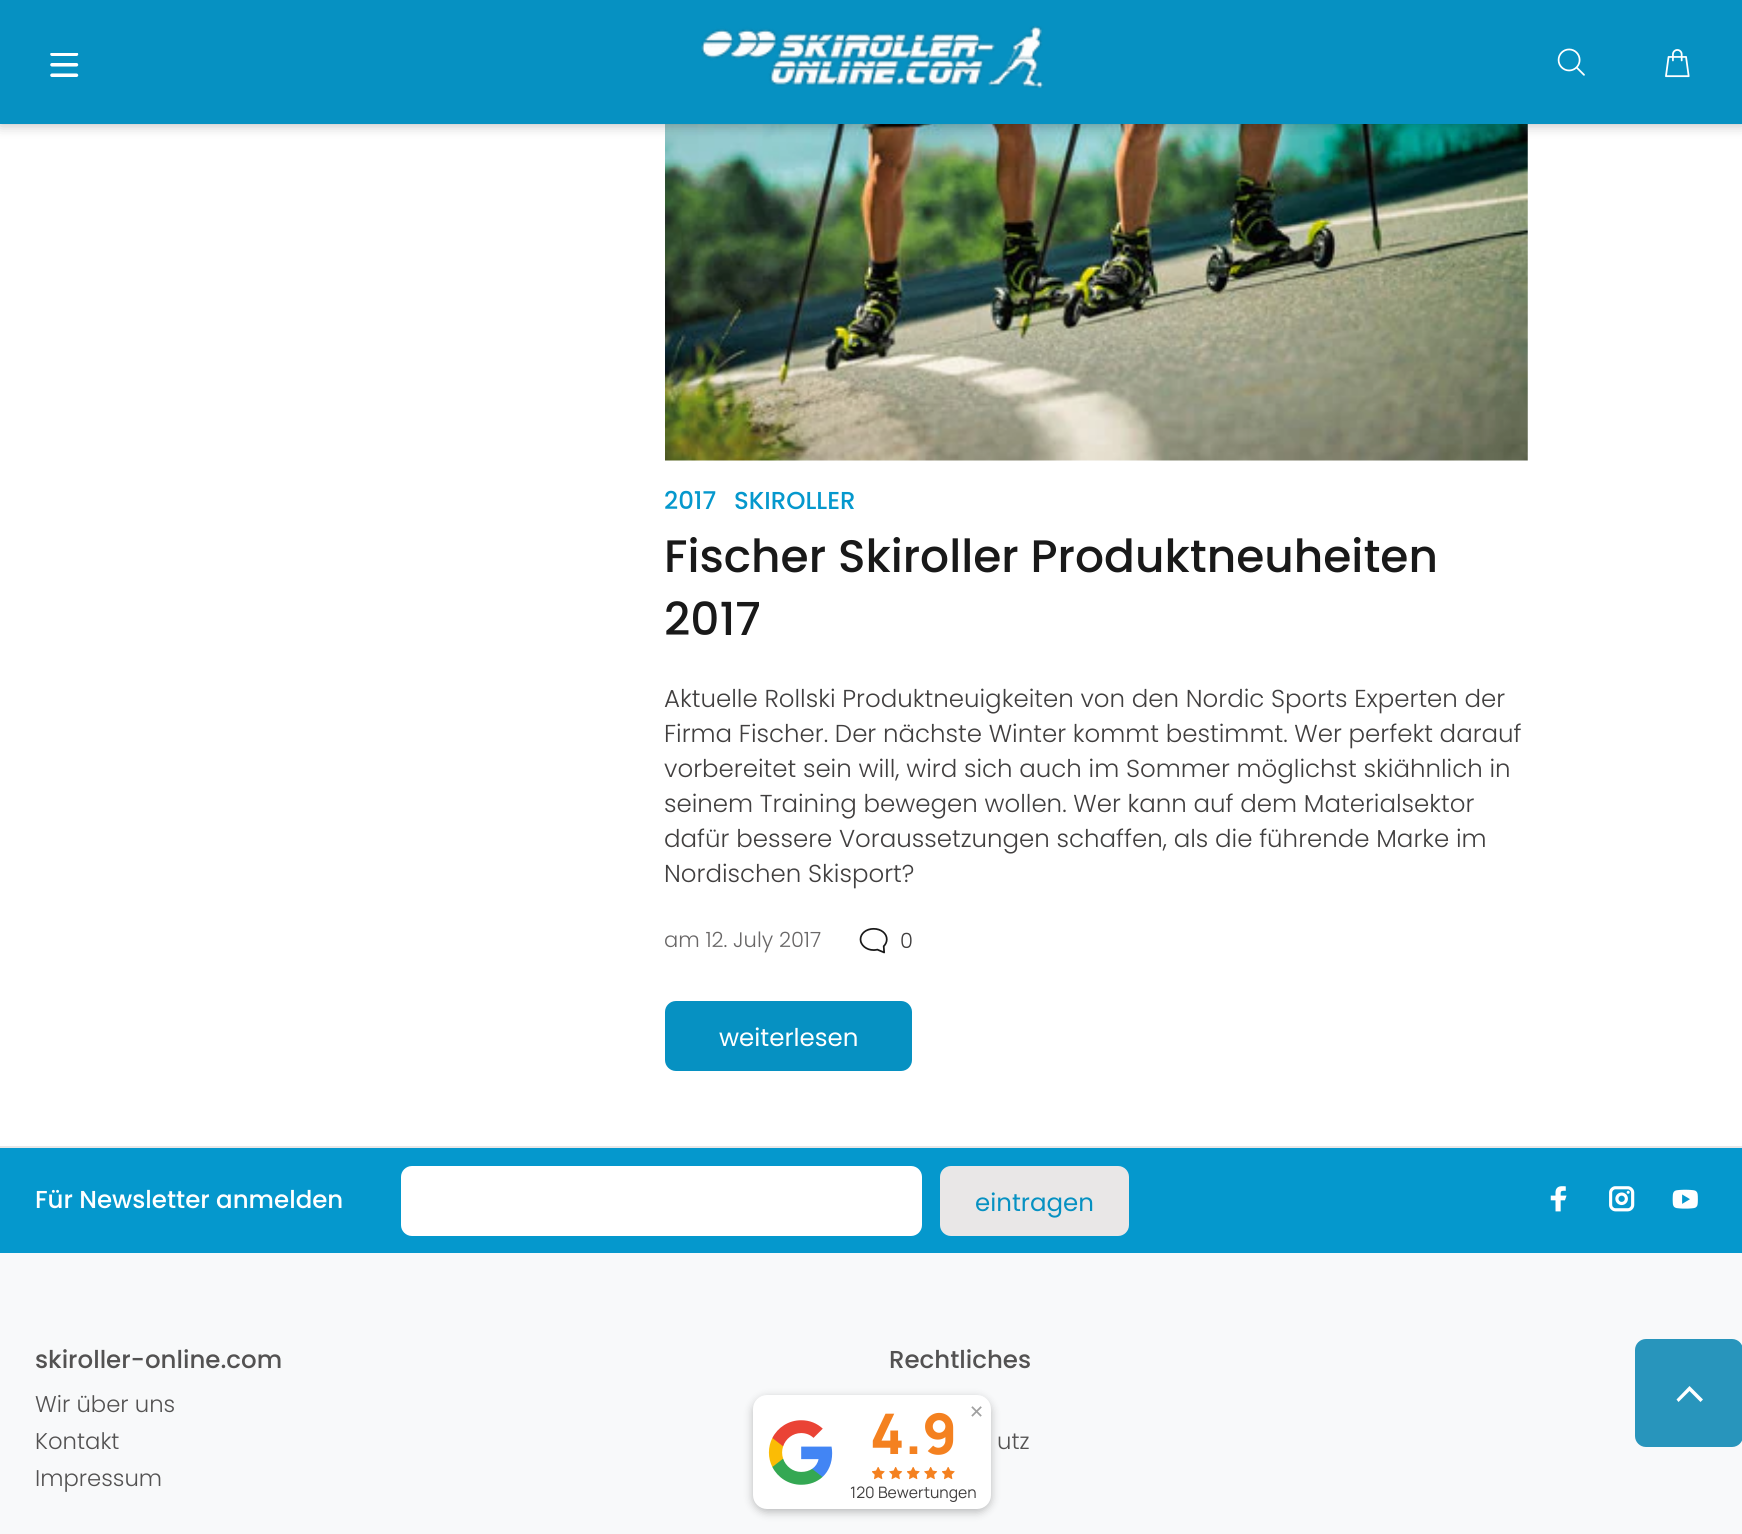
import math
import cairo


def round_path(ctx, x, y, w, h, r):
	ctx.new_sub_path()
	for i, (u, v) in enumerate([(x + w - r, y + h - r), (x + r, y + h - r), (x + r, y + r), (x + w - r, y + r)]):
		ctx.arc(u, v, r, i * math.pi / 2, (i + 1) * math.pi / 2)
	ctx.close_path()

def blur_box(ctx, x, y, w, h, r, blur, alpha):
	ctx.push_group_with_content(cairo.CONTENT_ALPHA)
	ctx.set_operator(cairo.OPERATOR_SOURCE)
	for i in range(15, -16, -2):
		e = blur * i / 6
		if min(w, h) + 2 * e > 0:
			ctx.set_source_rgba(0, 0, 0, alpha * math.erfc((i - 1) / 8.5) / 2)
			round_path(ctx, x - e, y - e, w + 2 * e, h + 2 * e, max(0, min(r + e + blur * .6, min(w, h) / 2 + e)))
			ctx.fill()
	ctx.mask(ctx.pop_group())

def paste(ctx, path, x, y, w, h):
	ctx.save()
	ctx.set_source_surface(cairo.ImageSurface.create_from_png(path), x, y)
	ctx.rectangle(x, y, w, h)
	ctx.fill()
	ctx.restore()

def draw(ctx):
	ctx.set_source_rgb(1, 1, 1)
	ctx.paint()
	paste(ctx, 'media/5.png', 665, 124, 863, 337)
	ctx.set_source_rgb(0, 0, 0)
	blur_box(ctx, 0, 0, 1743, 124, 0, 7, 0.3)
	ctx.set_source_rgb(0.027, 0.569, 0.761)
	ctx.rectangle(0, 0, 1742, 124)
	ctx.fill()
	paste(ctx, 'media/1.png', 50, 53, 29, 24)
	paste(ctx, 'media/2.png', 701, 26, 343, 62)
	paste(ctx, 'media/3.png', 1557, 48, 28, 28)
	paste(ctx, 'media/4.png', 1665, 49, 25, 29)
	ctx.select_font_face('Poppins Medium')
	ctx.set_font_size(24.5)
	ctx.set_source_rgb(0.02, 0.596, 0.804)
	ctx.move_to(664, 509)
	ctx.show_text('2017')
	ctx.move_to(734, 509)
	ctx.show_text('SKIROLLER')
	ctx.set_font_size(45.5)
	ctx.set_source_rgb(0.098, 0.098, 0.098)
	ctx.move_to(664, 572)
	ctx.show_text('Fischer Skiroller Produktneuheiten')
	ctx.move_to(664, 635)
	ctx.show_text('2017')
	ctx.select_font_face('Poppins Light')
	ctx.set_font_size(24.5)
	ctx.set_source_rgb(0.255, 0.247, 0.247)
	for x, y, s in [
		(664, 707, 'Aktuelle Rollski Produktneuigkeiten von den Nordic Sports Experten der'),
		(664, 742, 'Firma Fischer. Der nächste Winter kommt bestimmt. Wer perfekt darauf'),
		(664, 777, 'vorbereitet sein will, wird sich auch im Sommer möglichst skiähnlich in'),
		(664, 812, 'seinem Training bewegen wollen. Wer kann auf dem Materialsektor'),
		(664, 847, 'dafür bessere Voraussetzungen schaffen, als die führende Marke im'),
		(664, 882, 'Nordischen Skisport?'),
	]:
		ctx.move_to(x, y)
		ctx.show_text(s)
	ctx.set_font_size(21)
	ctx.set_source_rgb(0.412, 0.404, 0.404)
	ctx.move_to(664, 947)
	ctx.show_text('am 12. July 2017')
	paste(ctx, 'media/6.png', 859, 927, 29, 27)
	ctx.set_source_rgb(0.255, 0.247, 0.247)
	ctx.move_to(900, 948)
	ctx.show_text('0')
	ctx.set_source_rgb(0.027, 0.569, 0.761)
	round_path(ctx, 665, 1001, 247, 70, 11)
	ctx.fill()
	ctx.select_font_face('Poppins')
	ctx.set_font_size(24.5)
	ctx.set_source_rgb(1, 1, 1)
	ctx.move_to(719, 1046)
	ctx.show_text('weiterlesen')
	ctx.set_source_rgb(0.969, 0.973, 0.98)
	ctx.rectangle(0, 1253, 1742, 281)
	ctx.fill()
	ctx.set_source_rgb(0.914, 0.906, 0.906)
	ctx.rectangle(0, 1146, 1742, 2)
	ctx.fill()
	ctx.set_source_rgb(0.02, 0.596, 0.804)
	ctx.rectangle(0, 1148, 1742, 105)
	ctx.fill()
	ctx.select_font_face('Poppins Medium')
	ctx.set_source_rgb(1, 1, 1)
	ctx.move_to(35, 1208)
	ctx.show_text('Für Newsletter anmelden')
	round_path(ctx, 401, 1166, 521, 70, 11)
	ctx.fill()
	ctx.set_source_rgb(0.914, 0.906, 0.906)
	round_path(ctx, 940, 1166, 189, 70, 11)
	ctx.fill()
	ctx.select_font_face('Poppins')
	ctx.set_source_rgb(0.027, 0.569, 0.761)
	ctx.move_to(975, 1211)
	ctx.show_text('eintragen')
	paste(ctx, 'media/7.png', 1550, 1186, 17, 26)
	paste(ctx, 'media/8.png', 1609, 1186, 26, 26)
	paste(ctx, 'media/9.png', 1672, 1189, 26, 20)
	ctx.select_font_face('Poppins Medium')
	ctx.set_source_rgb(0.325, 0.322, 0.322)
	ctx.move_to(35, 1368)
	ctx.show_text('skiroller-online.com')
	ctx.select_font_face('Poppins Light')
	ctx.set_font_size(22.75)
	for x, y, s in [
		(35, 1412, 'Wir über uns'),
		(35, 1449, 'Kontakt'),
		(35, 1486, 'Impressum'),
	]:
		ctx.move_to(x, y)
		ctx.show_text(s)
	ctx.select_font_face('Poppins Medium')
	ctx.set_font_size(24.5)
	ctx.move_to(889, 1368)
	ctx.show_text('Rechtliches')
	ctx.select_font_face('Poppins Light')
	ctx.set_font_size(22.75)
	ctx.move_to(997, 1449)
	ctx.show_text('utz')
	ctx.set_source_rgb(0.157, 0.584, 0.737)
	round_path(ctx, 1635, 1339, 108, 108, 11)
	ctx.fill()
	ctx.set_source_rgb(1, 1, 1)
	ctx.new_path()
	ctx.move_to(1700.5, 1402)
	ctx.line_to(1689.5, 1391)
	ctx.line_to(1678.5, 1402)
	ctx.line_to(1676.5, 1399.5)
	ctx.line_to(1689.5, 1386)
	ctx.line_to(1703, 1399.5)
	ctx.close_path()
	ctx.fill()
	ctx.set_source_rgb(0, 0, 0)
	blur_box(ctx, 753, 1398, 238, 114, 14, 4.5, 0.26)
	ctx.set_source_rgb(1, 1, 1)
	round_path(ctx, 753, 1395, 238, 114, 14)
	ctx.fill()
	paste(ctx, 'media/10.png', 768, 1420, 65, 65)
	ctx.select_font_face('Manrope ExtraBold')
	ctx.set_font_size(56)
	ctx.set_source_rgb(0.957, 0.506, 0.125)
	ctx.move_to(870, 1454)
	ctx.show_text('4.9')
	paste(ctx, 'media/11.png', 872, 1467, 13, 13)
	paste(ctx, 'media/12.png', 889, 1467, 14, 13)
	paste(ctx, 'media/11.png', 907, 1467, 13, 13)
	paste(ctx, 'media/12.png', 924, 1467, 14, 13)
	paste(ctx, 'media/11.png', 942, 1467, 13, 13)
	ctx.select_font_face('Manrope')
	ctx.set_font_size(15.75)
	ctx.set_source_rgb(0.255, 0.247, 0.247)
	ctx.move_to(850, 1498)
	ctx.show_text('120 Bewertungen')
	ctx.select_font_face('DejaVu Sans')
	ctx.set_font_size(18)
	ctx.set_source_rgb(0.627, 0.627, 0.627)
	ctx.move_to(969, 1418)
	ctx.show_text('✕')


surface = cairo.ImageSurface(cairo.FORMAT_RGB24, 1742, 1534)
ctx = cairo.Context(surface)
options = cairo.FontOptions()
options.set_hint_metrics(cairo.HINT_METRICS_OFF)
options.set_hint_style(cairo.HINT_STYLE_NONE)
ctx.set_font_options(options)
ctx.set_miter_limit(4)
draw(ctx)
surface.write_to_png('image.png')
